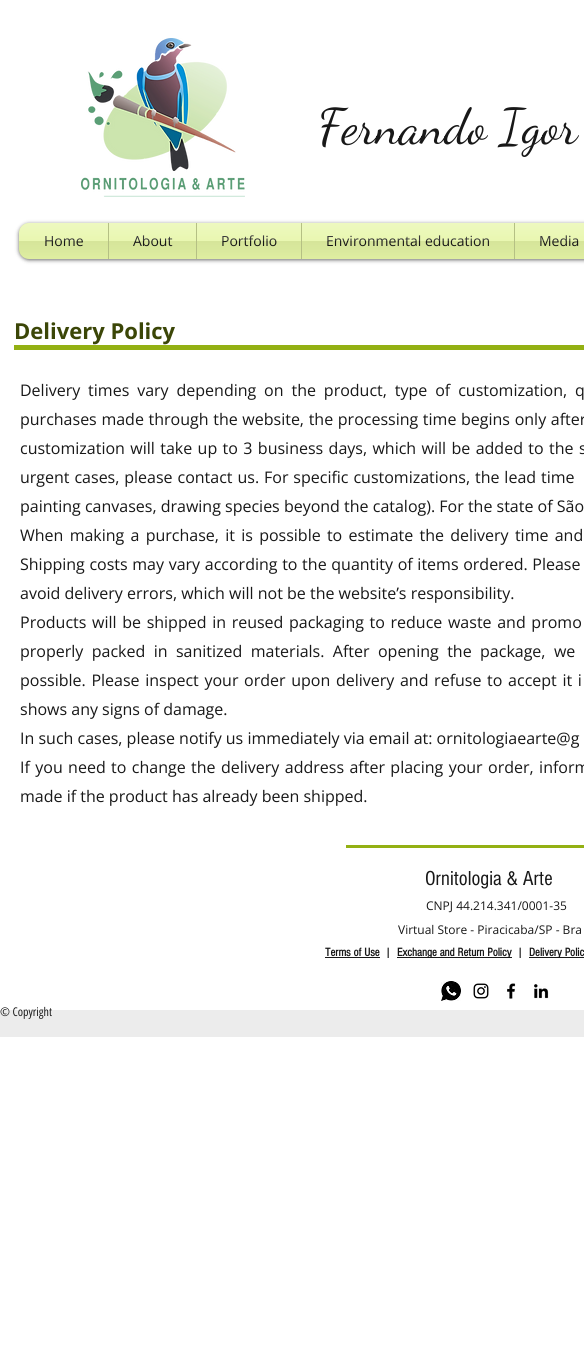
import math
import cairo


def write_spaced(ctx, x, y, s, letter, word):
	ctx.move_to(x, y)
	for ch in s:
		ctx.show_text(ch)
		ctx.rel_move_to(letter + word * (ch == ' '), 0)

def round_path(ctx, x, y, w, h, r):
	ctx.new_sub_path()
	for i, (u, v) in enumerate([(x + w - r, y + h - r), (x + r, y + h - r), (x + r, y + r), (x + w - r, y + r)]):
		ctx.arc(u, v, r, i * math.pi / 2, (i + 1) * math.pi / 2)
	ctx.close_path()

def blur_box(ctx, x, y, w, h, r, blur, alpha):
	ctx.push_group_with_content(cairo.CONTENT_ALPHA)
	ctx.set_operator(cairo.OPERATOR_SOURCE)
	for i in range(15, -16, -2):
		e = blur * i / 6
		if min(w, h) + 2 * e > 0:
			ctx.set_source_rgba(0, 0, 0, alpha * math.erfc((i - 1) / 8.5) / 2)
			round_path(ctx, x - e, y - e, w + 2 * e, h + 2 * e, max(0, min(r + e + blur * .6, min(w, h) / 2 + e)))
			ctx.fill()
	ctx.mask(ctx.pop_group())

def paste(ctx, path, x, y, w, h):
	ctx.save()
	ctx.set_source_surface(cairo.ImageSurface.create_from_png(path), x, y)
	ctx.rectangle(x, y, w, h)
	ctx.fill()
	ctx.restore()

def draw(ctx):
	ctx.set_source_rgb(1, 1, 1)
	ctx.paint()
	paste(ctx, 'media/1.png', 81, 38, 164, 159)
	ctx.select_font_face('Dancing Script')
	ctx.set_font_size(50)
	ctx.set_source_rgb(0.094, 0.094, 0.094)
	ctx.move_to(318, 143)
	ctx.show_text('Fernando Igor')
	ctx.set_source_rgb(0, 0, 0)
	blur_box(ctx, 19, 224, 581, 36, 10, 2, 0.6)
	paste(ctx, 'media/2.png', 19, 223, 10, 36)
	ctx.set_source_rgb(0.902, 0.961, 0.651)
	ctx.new_path()
	ctx.move_to(29, 223)
	ctx.line_to(108, 223)
	ctx.line_to(108, 259)
	ctx.line_to(29, 259)
	ctx.curve_to(23.5, 259, 19, 254.5, 19, 249)
	ctx.line_to(19, 233)
	ctx.curve_to(19, 227.5, 23.5, 223, 29, 223)
	ctx.close_path()
	ctx.fill()
	ctx.select_font_face('Open Sans')
	ctx.set_font_size(14)
	ctx.set_source_rgb(0.094, 0.094, 0.094)
	ctx.move_to(44, 246)
	ctx.show_text('Home')
	paste(ctx, 'media/3.png', 19, 223, 89, 36)
	ctx.set_source_rgb(0.902, 0.961, 0.651)
	ctx.rectangle(109, 223, 87, 36)
	ctx.fill()
	ctx.set_source_rgb(0.71, 0.753, 0.518)
	ctx.rectangle(108, 223, 1, 36)
	ctx.fill()
	ctx.set_source_rgb(0.094, 0.094, 0.094)
	ctx.move_to(133, 246)
	ctx.show_text('About')
	paste(ctx, 'media/4.png', 109, 223, 87, 36)
	ctx.set_source_rgb(0.902, 0.961, 0.651)
	ctx.rectangle(197, 223, 104, 36)
	ctx.fill()
	ctx.set_source_rgb(0.71, 0.753, 0.518)
	ctx.rectangle(196, 223, 1, 36)
	ctx.fill()
	ctx.set_source_rgb(0.094, 0.094, 0.094)
	ctx.move_to(221, 246)
	ctx.show_text('Portfolio')
	paste(ctx, 'media/5.png', 197, 223, 104, 36)
	ctx.set_source_rgb(0.902, 0.961, 0.651)
	ctx.rectangle(302, 223, 212, 36)
	ctx.fill()
	ctx.set_source_rgb(0.71, 0.753, 0.518)
	ctx.rectangle(301, 223, 1, 36)
	ctx.fill()
	ctx.set_source_rgb(0.094, 0.094, 0.094)
	ctx.move_to(326, 246)
	ctx.show_text('Environmental education')
	paste(ctx, 'media/6.png', 302, 223, 212, 36)
	ctx.set_source_rgb(0.902, 0.961, 0.651)
	ctx.rectangle(515, 223, 69, 36)
	ctx.fill()
	ctx.set_source_rgb(0.71, 0.753, 0.518)
	ctx.rectangle(514, 223, 1, 36)
	ctx.fill()
	ctx.set_source_rgb(0.094, 0.094, 0.094)
	ctx.move_to(539, 246)
	ctx.show_text('Media')
	paste(ctx, 'media/7.png', 515, 223, 69, 36)
	ctx.select_font_face('Open Sans', cairo.FONT_SLANT_NORMAL, cairo.FONT_WEIGHT_BOLD)
	ctx.set_font_size(22)
	ctx.set_source_rgb(0.231, 0.275, 0.031)
	ctx.move_to(14, 339)
	ctx.show_text('Delivery Policy')
	ctx.set_source_rgb(0.576, 0.69, 0.075)
	ctx.rectangle(14, 345, 570, 5)
	ctx.fill()
	ctx.select_font_face('Open Sans')
	ctx.set_font_size(16)
	ctx.set_source_rgb(0.094, 0.094, 0.094)
	write_spaced(ctx, 20, 396, 'Delivery times vary depending on the product, type of customization, q', 0, 3.75)
	write_spaced(ctx, 20, 425, 'purchases made through the website, the processing time begins only after', 0, 0.5)
	write_spaced(ctx, 20, 454, 'customization will take up to 3 business days, which will be added to the s', 0, 1.25)
	write_spaced(ctx, 20, 483, 'urgent cases, please contact us. For specific customizations, the lead time', 0, 0.75)
	ctx.move_to(20, 512)
	ctx.show_text('painting canvases, drawing species beyond the catalog). For the state of São')
	write_spaced(ctx, 20, 541, 'When making a purchase, it is possible to estimate the delivery time and', 0, 2.1)
	write_spaced(ctx, 20, 570, 'Shipping costs may vary according to the quantity of items ordered. Please', 0, 0.5)
	ctx.move_to(20, 599)
	ctx.show_text('avoid delivery errors, which will not be the website’s responsibility.')
	write_spaced(ctx, 20, 628, 'Products will be shipped in reused packaging to reduce waste and promo', 0, 1.5)
	write_spaced(ctx, 20, 657, 'properly packed in sanitized materials. After opening the package, we', 0, 4.25)
	write_spaced(ctx, 20, 686, 'possible. Please inspect your order upon delivery and refuse to accept it i', 0, 1.5)
	ctx.move_to(20, 715)
	ctx.show_text('shows any signs of damage.')
	ctx.move_to(20, 744)
	ctx.show_text('In such cases, please notify us immediately via email at: ornitologiaearte@g')
	write_spaced(ctx, 20, 773, 'If you need to change the delivery address after placing your order, inform', 0, 1.25)
	ctx.move_to(20, 802)
	ctx.show_text('made if the product has already been shipped.')
	ctx.set_source_rgb(0.576, 0.69, 0.075)
	ctx.rectangle(346, 845, 238, 3)
	ctx.fill()
	ctx.select_font_face('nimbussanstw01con')
	ctx.set_font_size(21)
	ctx.set_source_rgb(0.094, 0.094, 0.094)
	ctx.move_to(425, 885)
	ctx.show_text('Ornitologia & Arte')
	ctx.select_font_face('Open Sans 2')
	ctx.set_font_size(12)
	ctx.move_to(426, 910)
	ctx.show_text('CNPJ 44.214.341/0001-35')
	ctx.move_to(398, 934)
	ctx.show_text('Virtual Store - Piracicaba/SP - Bra')
	ctx.select_font_face('nimbussanstw01con', cairo.FONT_SLANT_NORMAL, cairo.FONT_WEIGHT_BOLD)
	ctx.move_to(325, 956)
	ctx.show_text('Terms of Use')
	ctx.rectangle(325, 957, 55, 1)
	ctx.fill()
	ctx.move_to(385, 956)
	ctx.show_text('|')
	ctx.rectangle(397, 957, 115, 1)
	ctx.fill()
	ctx.move_to(397, 956)
	ctx.show_text('Exchange and Return Policy')
	ctx.move_to(517, 956)
	ctx.show_text('|')
	ctx.rectangle(529, 957, 55, 1)
	ctx.fill()
	ctx.move_to(529, 956)
	ctx.show_text('Delivery Polic')
	paste(ctx, 'media/8.png', 441, 981, 20, 20)
	paste(ctx, 'media/9.png', 473, 983, 16, 16)
	paste(ctx, 'media/10.png', 507, 983, 9, 16)
	paste(ctx, 'media/11.png', 534, 984, 15, 15)
	ctx.set_source_rgb(0.922, 0.922, 0.922)
	ctx.rectangle(0, 1010, 584, 27)
	ctx.fill()
	ctx.select_font_face('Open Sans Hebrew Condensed')
	ctx.set_source_rgb(0.094, 0.094, 0.094)
	ctx.move_to(0, 1016)
	ctx.show_text('© Copyright')


surface = cairo.ImageSurface(cairo.FORMAT_RGB24, 584, 1354)
ctx = cairo.Context(surface)
options = cairo.FontOptions()
options.set_hint_metrics(cairo.HINT_METRICS_OFF)
options.set_hint_style(cairo.HINT_STYLE_NONE)
ctx.set_font_options(options)
ctx.set_miter_limit(4)
draw(ctx)
surface.write_to_png('image.png')
